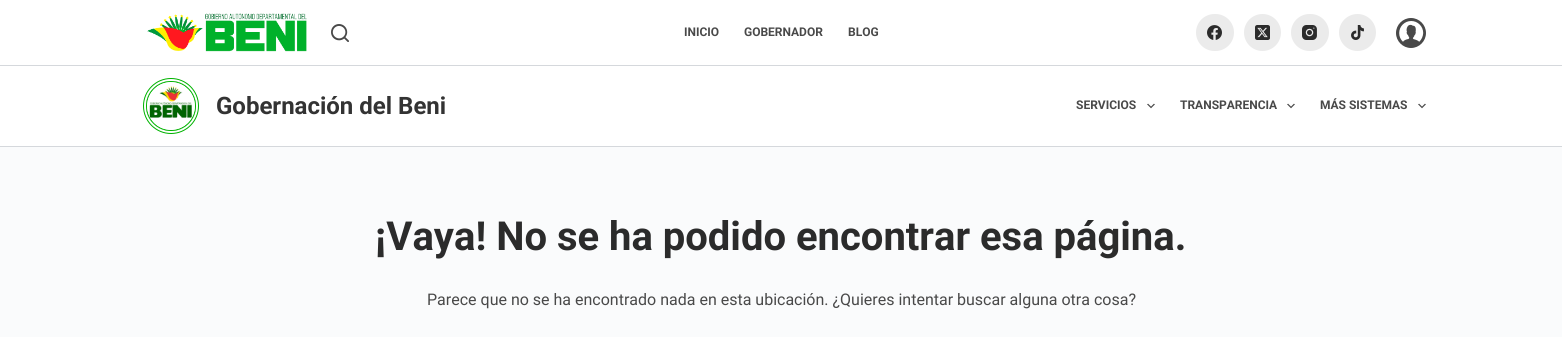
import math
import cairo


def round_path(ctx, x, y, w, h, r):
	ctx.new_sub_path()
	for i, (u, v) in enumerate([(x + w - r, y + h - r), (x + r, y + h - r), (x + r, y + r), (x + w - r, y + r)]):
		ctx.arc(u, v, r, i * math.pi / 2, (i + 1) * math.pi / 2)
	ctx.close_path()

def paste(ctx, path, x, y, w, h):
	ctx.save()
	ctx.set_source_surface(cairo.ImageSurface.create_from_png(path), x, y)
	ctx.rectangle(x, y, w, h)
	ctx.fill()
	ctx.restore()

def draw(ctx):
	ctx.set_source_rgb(0.98, 0.984, 0.988)
	ctx.paint()
	ctx.set_source_rgb(1, 1, 1)
	ctx.rectangle(0, 0, 1562, 65)
	ctx.fill()
	paste(ctx, 'media/1.png', 147, 13, 160, 39)
	paste(ctx, 'media/2.png', 331, 24, 18, 18)
	ctx.select_font_face('Roboto', cairo.FONT_SLANT_NORMAL, cairo.FONT_WEIGHT_BOLD)
	ctx.set_font_size(12)
	ctx.set_source_rgb(0.286, 0.286, 0.286)
	for x, y, s in [
		(684, 36, 'INICIO'),
		(744, 36, 'GOBERNADOR'),
		(848, 36, 'BLOG'),
	]:
		ctx.move_to(x, y)
		ctx.show_text(s)
	ctx.set_source_rgb(0.918, 0.918, 0.918)
	round_path(ctx, 1196, 14, 38, 37, 18.5)
	ctx.fill()
	paste(ctx, 'media/3.png', 1207, 25, 15, 15)
	ctx.arc(1262.5, 32.5, 18.5, 0, 2 * math.pi)
	ctx.fill()
	paste(ctx, 'media/4.png', 1255, 25, 15, 15)
	round_path(ctx, 1291, 14, 38, 37, 18.5)
	ctx.fill()
	paste(ctx, 'media/5.png', 1302, 25, 15, 15)
	ctx.arc(1357.5, 32.5, 18.5, 0, 2 * math.pi)
	ctx.fill()
	paste(ctx, 'media/6.png', 1351, 25, 13, 15)
	paste(ctx, 'media/7.png', 1396, 18, 30, 30)
	ctx.set_source_rgb(1, 1, 1)
	ctx.rectangle(0, 66, 1562, 80)
	ctx.fill()
	ctx.set_source_rgb(0.835, 0.847, 0.863)
	ctx.rectangle(0, 65, 1562, 1)
	ctx.rectangle(0, 146, 1562, 1)
	ctx.fill()
	ctx.arc(171, 106, 26.5, 0, 2 * math.pi)
	ctx.set_source_rgb(0, 0.702, 0)
	ctx.set_line_width(3)
	ctx.stroke()
	ctx.arc(171, 106, 26, 0, 2 * math.pi)
	ctx.set_source_rgb(1, 1, 1)
	ctx.set_line_width(2)
	ctx.stroke()
	ctx.arc(171, 106, 24.5, 0, 2 * math.pi)
	ctx.set_source_rgb(0, 0.702, 0)
	ctx.set_line_width(1)
	ctx.stroke()
	paste(ctx, 'media/8.png', 147, 82, 48, 48)
	ctx.set_font_size(24)
	ctx.set_source_rgb(0.2, 0.2, 0.2)
	ctx.move_to(216, 114)
	ctx.show_text('Gobernación del Beni')
	ctx.set_font_size(12)
	ctx.set_source_rgb(0.286, 0.286, 0.286)
	ctx.move_to(1076, 109)
	ctx.show_text('SERVICIOS')
	paste(ctx, 'media/9.png', 1147, 103, 8, 6)
	ctx.move_to(1180, 109)
	ctx.show_text('TRANSPARENCIA')
	paste(ctx, 'media/9.png', 1287, 103, 8, 6)
	ctx.move_to(1320, 109)
	ctx.show_text('MÁS SISTEMAS')
	paste(ctx, 'media/9.png', 1418, 103, 8, 6)
	ctx.set_font_size(40)
	ctx.set_source_rgb(0.169, 0.169, 0.169)
	ctx.move_to(375, 250)
	ctx.show_text('¡Vaya! No se ha podido encontrar esa página.')
	ctx.select_font_face('Roboto')
	ctx.set_font_size(16)
	ctx.set_source_rgb(0.286, 0.286, 0.286)
	ctx.move_to(427, 305)
	ctx.show_text('Parece que no se ha encontrado nada en esta ubicación. ¿Quieres intentar buscar alguna otra cosa?')


surface = cairo.ImageSurface(cairo.FORMAT_RGB24, 1562, 337)
ctx = cairo.Context(surface)
options = cairo.FontOptions()
options.set_hint_metrics(cairo.HINT_METRICS_OFF)
options.set_hint_style(cairo.HINT_STYLE_NONE)
ctx.set_font_options(options)
ctx.set_miter_limit(4)
draw(ctx)
surface.write_to_png('image.png')
